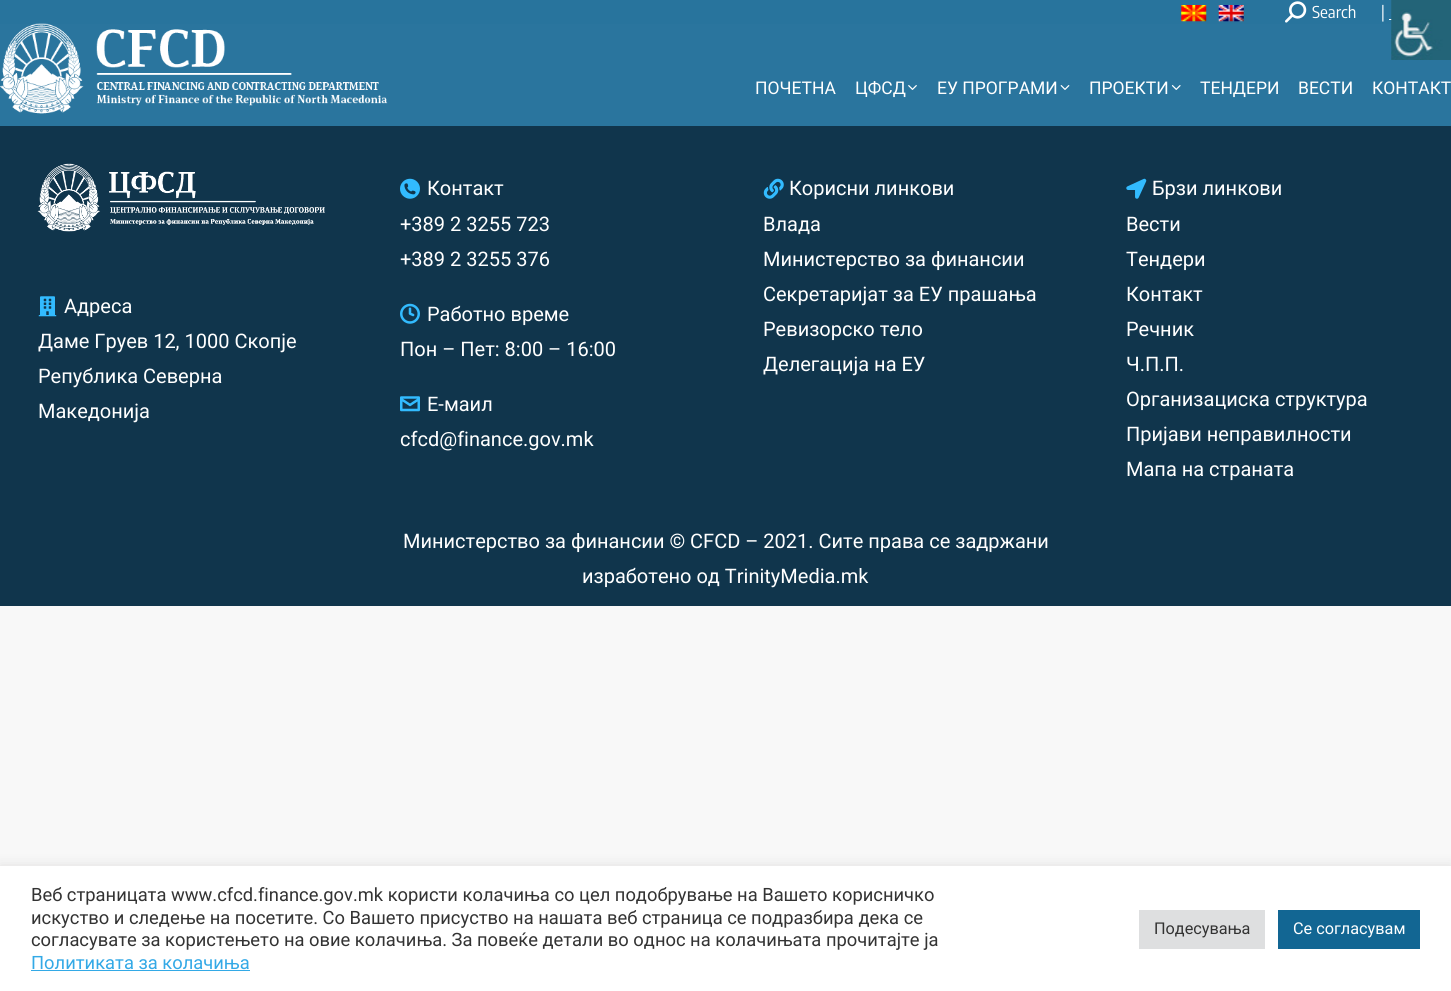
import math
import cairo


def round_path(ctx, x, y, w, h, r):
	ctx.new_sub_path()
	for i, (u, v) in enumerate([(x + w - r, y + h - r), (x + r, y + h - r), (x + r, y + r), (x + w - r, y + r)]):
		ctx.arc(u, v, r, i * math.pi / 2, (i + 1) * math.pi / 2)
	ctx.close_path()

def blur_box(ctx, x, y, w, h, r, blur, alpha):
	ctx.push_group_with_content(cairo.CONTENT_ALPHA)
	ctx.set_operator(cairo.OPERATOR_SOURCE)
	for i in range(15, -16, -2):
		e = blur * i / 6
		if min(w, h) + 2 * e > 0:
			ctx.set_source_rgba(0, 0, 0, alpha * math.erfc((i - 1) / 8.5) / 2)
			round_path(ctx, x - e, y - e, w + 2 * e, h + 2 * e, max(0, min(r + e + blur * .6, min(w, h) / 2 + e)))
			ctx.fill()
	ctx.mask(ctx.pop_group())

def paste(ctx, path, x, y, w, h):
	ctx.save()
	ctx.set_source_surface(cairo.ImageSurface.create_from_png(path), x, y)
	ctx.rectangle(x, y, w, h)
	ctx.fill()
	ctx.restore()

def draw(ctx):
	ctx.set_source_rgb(0.969, 0.969, 0.969)
	ctx.paint()
	ctx.set_source_rgb(0.165, 0.459, 0.62)
	ctx.rectangle(0, 24, 1451, 102)
	ctx.fill()
	ctx.set_source_rgb(0.157, 0.455, 0.616)
	ctx.rectangle(0, 0, 1392, 24)
	ctx.fill()
	ctx.set_source_rgb(1, 1, 1)
	ctx.rectangle(1389, 19, 3, 1)
	ctx.fill()
	paste(ctx, 'media/1.png', 1391, 0, 60, 60)
	paste(ctx, 'media/2.png', 1181, 5, 26, 17)
	paste(ctx, 'media/3.png', 1218, 5, 26, 17)
	paste(ctx, 'media/4.png', 1285, 1, 22, 22)
	ctx.select_font_face('Encode Sans Semi Condensed')
	ctx.set_font_size(16.25)
	ctx.move_to(1312, 18)
	ctx.show_text('Search')
	ctx.move_to(1381, 18)
	ctx.show_text('|')
	paste(ctx, 'media/5.png', 0, 23, 388, 91)
	ctx.select_font_face('Roboto')
	ctx.set_font_size(17.5)
	ctx.move_to(755, 94)
	ctx.show_text('ПОЧЕТНА')
	ctx.move_to(855, 94)
	ctx.show_text('ЦФСД')
	paste(ctx, 'media/6.png', 908, 85, 9, 5)
	ctx.move_to(937, 94)
	ctx.show_text('ЕУ ПРОГРАМИ')
	paste(ctx, 'media/7.png', 1060, 85, 10, 5)
	ctx.move_to(1089, 94)
	ctx.show_text('ПРОЕКТИ')
	paste(ctx, 'media/8.png', 1171, 85, 10, 5)
	for x, y, s in [
		(1200, 94, 'ТЕНДЕРИ'),
		(1298, 94, 'ВЕСТИ'),
		(1372, 94, 'КОНТАКТ'),
	]:
		ctx.move_to(x, y)
		ctx.show_text(s)
	ctx.set_source_rgb(0.063, 0.208, 0.298)
	ctx.rectangle(0, 126, 1451, 480)
	ctx.fill()
	paste(ctx, 'media/9.png', 37, 163, 288, 69)
	paste(ctx, 'media/10.png', 38, 296, 19, 21)
	ctx.set_font_size(20)
	ctx.set_source_rgb(1, 1, 1)
	for x, y, s in [
		(64, 313, 'Адреса'),
		(38, 348, 'Даме Груев 12, 1000 Скопје'),
		(38, 383, 'Република Северна'),
		(38, 418, 'Македонија'),
	]:
		ctx.move_to(x, y)
		ctx.show_text(s)
	paste(ctx, 'media/11.png', 400, 178, 20, 21)
	for x, y, s in [
		(427, 195, 'Контакт'),
		(400, 231, '+389 2 3255 723'),
		(400, 266, '+389 2 3255 376'),
	]:
		ctx.move_to(x, y)
		ctx.show_text(s)
	paste(ctx, 'media/12.png', 400, 303, 20, 21)
	ctx.move_to(427, 321)
	ctx.show_text('Работно време')
	ctx.move_to(400, 356)
	ctx.show_text('Пон – Пет: 8:00 – 16:00')
	paste(ctx, 'media/13.png', 400, 396, 20, 16)
	ctx.move_to(427, 411)
	ctx.show_text('Е-маил')
	ctx.move_to(400, 446)
	ctx.show_text('cfcd@finance.gov.mk')
	paste(ctx, 'media/14.png', 763, 178, 21, 21)
	for x, y, s in [
		(789, 195, 'Корисни линкови'),
		(763, 231, 'Влада'),
		(763, 266, 'Министерство за финансии'),
		(763, 301, 'Секретаријат за ЕУ прашања'),
		(763, 336, 'Ревизорско тело'),
		(763, 371, 'Делегација на ЕУ'),
	]:
		ctx.move_to(x, y)
		ctx.show_text(s)
	paste(ctx, 'media/15.png', 1126, 178, 21, 21)
	for x, y, s in [
		(1152, 195, 'Брзи линкови'),
		(1126, 231, 'Вести'),
		(1126, 266, 'Тендери'),
		(1126, 301, 'Контакт'),
		(1126, 336, 'Речник'),
		(1126, 371, 'Ч.П.П.'),
		(1126, 406, 'Организациска структура'),
		(1126, 441, 'Пријави неправилности'),
		(1126, 476, 'Мапа на страната'),
		(403, 548, 'Министерство за финансии © CFCD – 2021. Сите права се задржани'),
		(582, 583, 'изработено од TrinityMedia.mk'),
	]:
		ctx.move_to(x, y)
		ctx.show_text(s)
	ctx.set_source_rgb(0.675, 0.671, 0.671)
	blur_box(ctx, 0, 865, 1451, 125, 0, 6, 0.3)
	ctx.set_source_rgb(1, 1, 1)
	ctx.rectangle(0, 866, 1451, 125)
	ctx.fill()
	ctx.set_font_size(18.35)
	ctx.set_source_rgb(0.2, 0.2, 0.2)
	for x, y, s in [
		(31, 901, 'Веб страницата www.cfcd.finance.gov.mk користи колачиња со цел подобрување на Вашето корисничко'),
		(31, 924, 'искуство и следење на посетите. Со Вашето присуство на нашата веб страница се подразбира дека се'),
		(31, 946, 'согласувате за користењето на овие колачиња. За повеќе детали во однос на колачињата прочитајте ја'),
	]:
		ctx.move_to(x, y)
		ctx.show_text(s)
	ctx.set_source_rgb(0.2, 0.663, 0.902)
	ctx.move_to(31, 969)
	ctx.show_text('Политиката за колачиња')
	ctx.rectangle(31, 970, 219, 1)
	ctx.fill()
	ctx.set_source_rgb(0.871, 0.875, 0.878)
	ctx.rectangle(1139, 910, 126, 39)
	ctx.fill()
	ctx.set_font_size(16.25)
	ctx.set_source_rgb(0.2, 0.2, 0.2)
	ctx.move_to(1154, 934)
	ctx.show_text('Подесувања')
	ctx.set_source_rgb(0.071, 0.4, 0.576)
	ctx.rectangle(1278, 910, 142, 39)
	ctx.fill()
	ctx.set_source_rgb(1, 1, 1)
	ctx.move_to(1293, 934)
	ctx.show_text('Се согласувам')


surface = cairo.ImageSurface(cairo.FORMAT_RGB24, 1451, 991)
ctx = cairo.Context(surface)
options = cairo.FontOptions()
options.set_hint_metrics(cairo.HINT_METRICS_OFF)
options.set_hint_style(cairo.HINT_STYLE_NONE)
ctx.set_font_options(options)
ctx.set_miter_limit(4)
draw(ctx)
surface.write_to_png('image.png')
